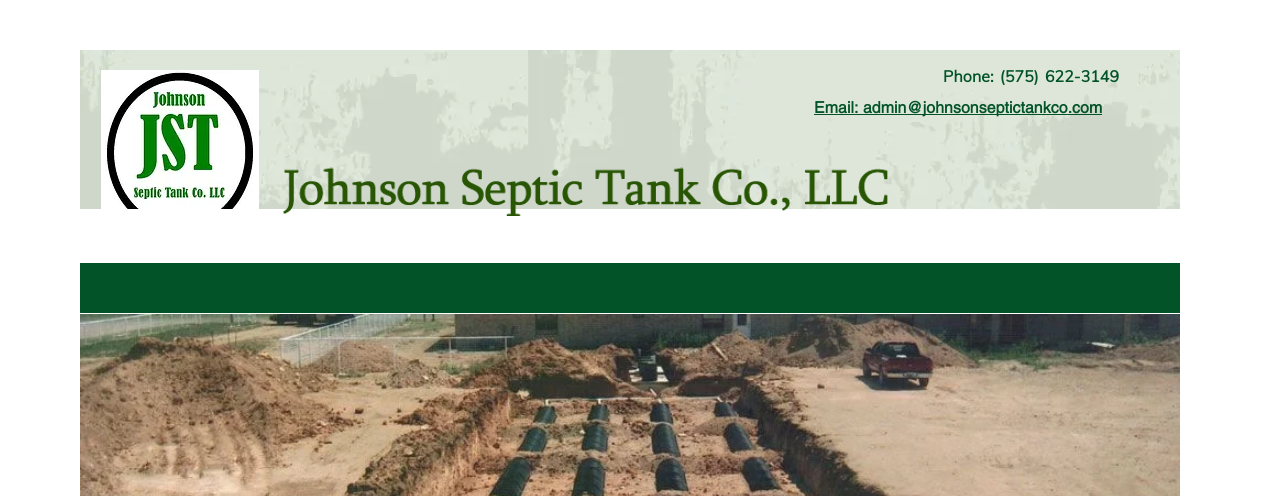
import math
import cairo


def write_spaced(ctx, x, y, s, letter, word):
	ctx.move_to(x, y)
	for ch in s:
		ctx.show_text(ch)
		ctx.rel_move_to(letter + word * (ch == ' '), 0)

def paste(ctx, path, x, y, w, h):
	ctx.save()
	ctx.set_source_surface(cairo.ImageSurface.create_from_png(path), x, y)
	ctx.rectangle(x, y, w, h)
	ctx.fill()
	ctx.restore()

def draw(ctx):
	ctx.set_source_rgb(1, 1, 1)
	ctx.paint()
	paste(ctx, 'media/1.png', 80, 50, 1100, 159)
	paste(ctx, 'media/2.png', 101, 70, 158, 139)
	ctx.select_font_face('Muli', cairo.FONT_SLANT_NORMAL, cairo.FONT_WEIGHT_BOLD)
	ctx.set_font_size(16)
	ctx.set_source_rgb(0.008, 0.325, 0.157)
	write_spaced(ctx, 943, 82, 'Phone: (575) 622-3149', 0, 2)
	ctx.rectangle(814, 114, 288, 1)
	ctx.fill()
	ctx.select_font_face('helvetica', cairo.FONT_SLANT_NORMAL, cairo.FONT_WEIGHT_BOLD)
	ctx.move_to(814, 113)
	ctx.show_text('Email: admin@johnsonseptictankco.com')
	paste(ctx, 'media/3.png', 282, 167, 606, 49)
	ctx.rectangle(80, 263, 1100, 50)
	ctx.fill()
	paste(ctx, 'media/4.png', 80, 314, 1100, 182)


surface = cairo.ImageSurface(cairo.FORMAT_RGB24, 1274, 496)
ctx = cairo.Context(surface)
options = cairo.FontOptions()
options.set_hint_metrics(cairo.HINT_METRICS_OFF)
options.set_hint_style(cairo.HINT_STYLE_NONE)
ctx.set_font_options(options)
ctx.set_miter_limit(4)
draw(ctx)
surface.write_to_png('image.png')
